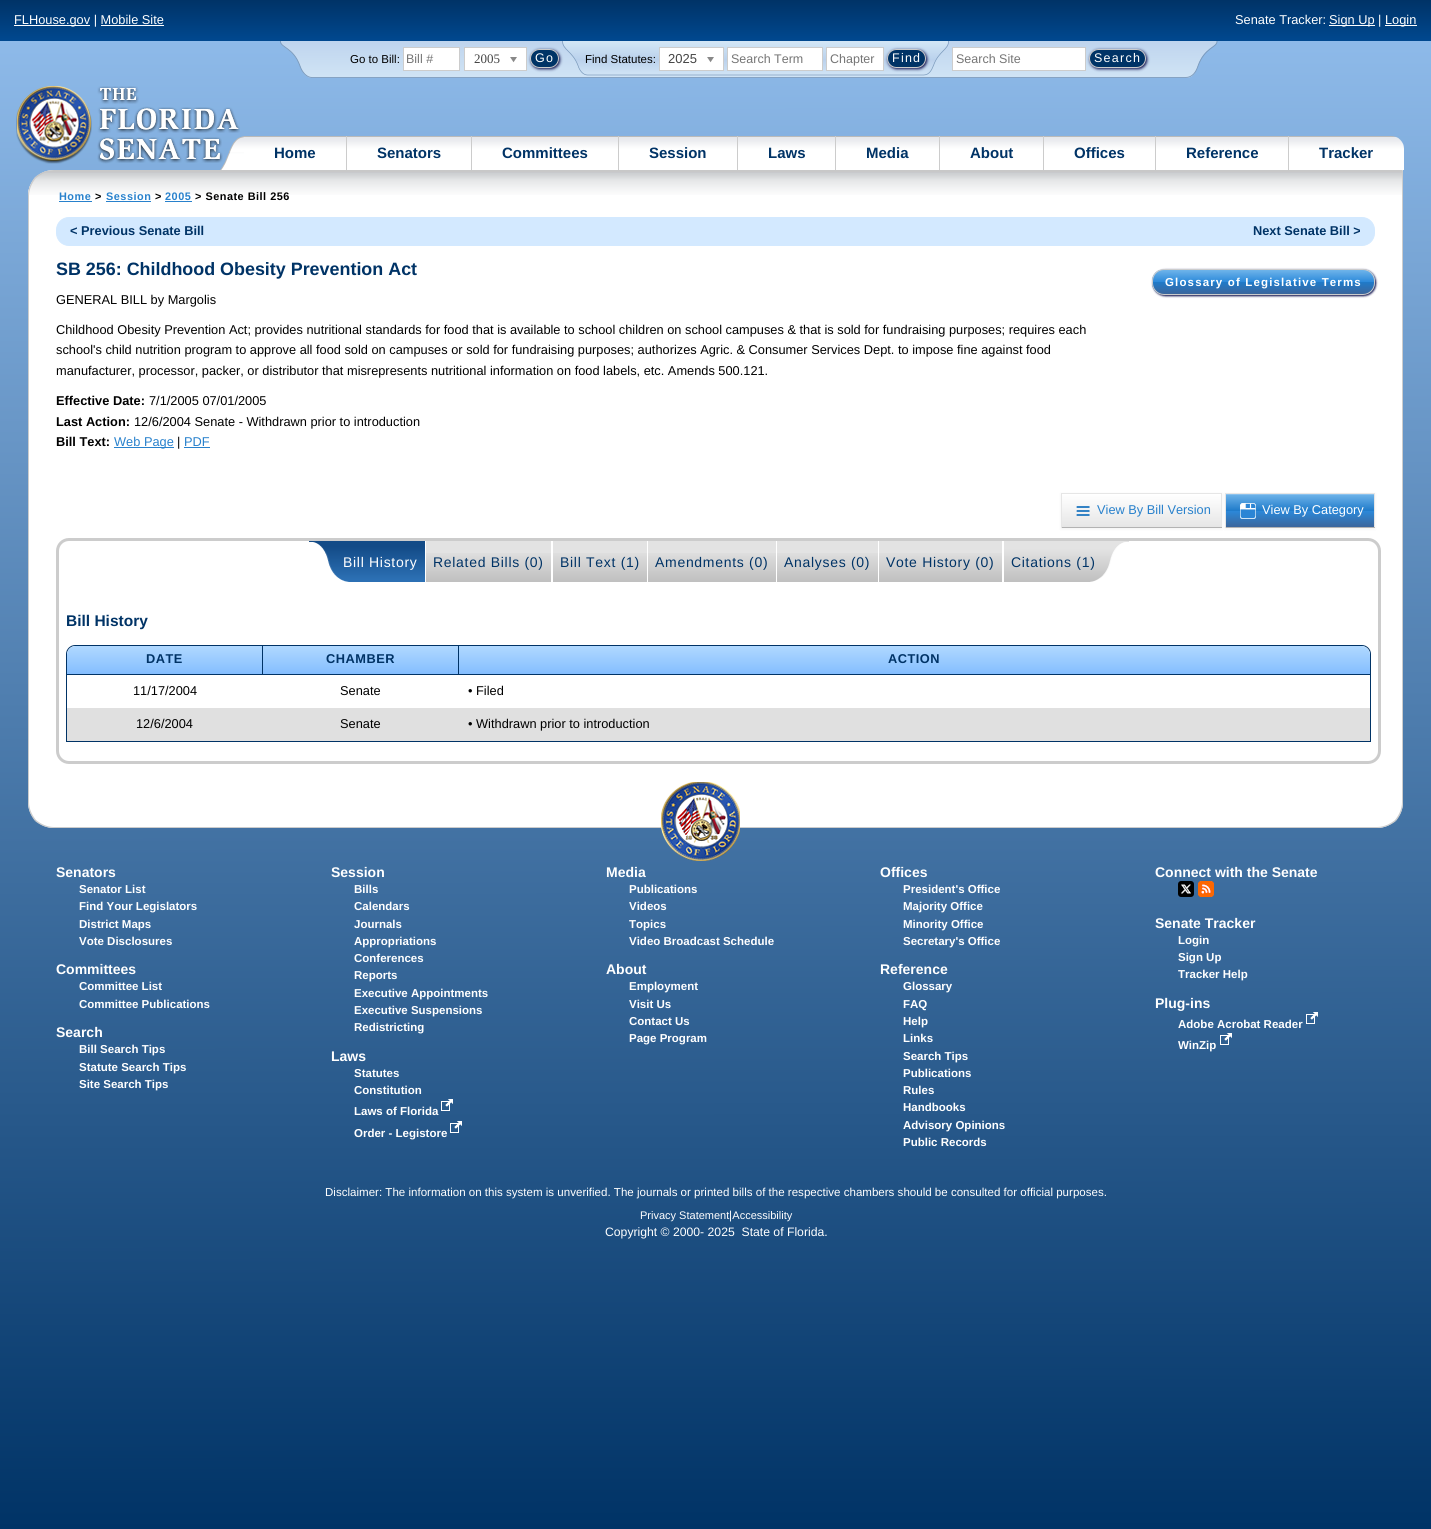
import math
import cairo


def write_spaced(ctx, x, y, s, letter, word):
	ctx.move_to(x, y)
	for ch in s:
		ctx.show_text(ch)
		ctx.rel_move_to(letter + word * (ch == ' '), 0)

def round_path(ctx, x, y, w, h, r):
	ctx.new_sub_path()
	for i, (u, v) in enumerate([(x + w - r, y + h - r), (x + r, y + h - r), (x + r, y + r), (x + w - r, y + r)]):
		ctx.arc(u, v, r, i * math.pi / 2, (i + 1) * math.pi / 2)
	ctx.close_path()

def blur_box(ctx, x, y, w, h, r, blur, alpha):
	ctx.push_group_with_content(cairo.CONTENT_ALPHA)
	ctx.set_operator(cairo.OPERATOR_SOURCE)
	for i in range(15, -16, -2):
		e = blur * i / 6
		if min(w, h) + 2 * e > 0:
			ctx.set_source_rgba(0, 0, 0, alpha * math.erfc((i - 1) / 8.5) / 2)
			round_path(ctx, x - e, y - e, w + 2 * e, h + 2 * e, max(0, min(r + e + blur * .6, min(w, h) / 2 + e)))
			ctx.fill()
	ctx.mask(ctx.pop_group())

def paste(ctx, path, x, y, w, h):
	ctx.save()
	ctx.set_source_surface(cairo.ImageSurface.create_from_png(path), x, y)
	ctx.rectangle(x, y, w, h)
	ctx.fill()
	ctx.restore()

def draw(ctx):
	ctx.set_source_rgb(1, 1, 1)
	ctx.paint()
	gradient = cairo.LinearGradient(715, 0, 716, 1529)
	gradient.add_color_stop_rgba(0.01, 0.565, 0.737, 0.922, 1)
	gradient.add_color_stop_rgba(1, 0, 0.2, 0.4, 1)
	ctx.set_source(gradient)
	ctx.rectangle(0, 41, 1431, 1488)
	ctx.fill()
	gradient = cairo.LinearGradient(716, 0, 716, 41)
	gradient.add_color_stop_rgba(0, 0, 0.2, 0.4, 1)
	gradient.add_color_stop_rgba(1, 0, 0.282, 0.561, 1)
	ctx.set_source(gradient)
	ctx.rectangle(0, 0, 1431, 41)
	ctx.fill()
	ctx.set_source_rgb(1, 1, 1)
	ctx.rectangle(14, 25, 76, 1)
	ctx.fill()
	ctx.select_font_face('Liberation Sans')
	ctx.set_font_size(12.8)
	ctx.move_to(14, 24)
	ctx.show_text('FLHouse.gov | Mobile Site')
	ctx.rectangle(101, 25, 63, 1)
	ctx.fill()
	ctx.move_to(1235, 24)
	ctx.show_text('Senate Tracker:')
	ctx.rectangle(1329, 25, 46, 1)
	ctx.fill()
	ctx.move_to(1329, 24)
	ctx.show_text('Sign Up |')
	ctx.rectangle(1385, 25, 32, 1)
	ctx.fill()
	ctx.move_to(1385, 24)
	ctx.show_text('Login')
	ctx.save()
	ctx.rectangle(278, 41, 940, 44)
	ctx.clip()
	gradient = cairo.LinearGradient(749, -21, 749, 78)
	gradient.add_color_stop_rgba(0, 0.827, 0.906, 0.965, 1)
	gradient.add_color_stop_rgba(0.55, 0.729, 0.82, 0.925, 1)
	gradient.add_color_stop_rgba(0.59, 0.741, 0.827, 0.929, 1)
	gradient.add_color_stop_rgba(1, 0.816, 0.894, 0.961, 1)
	ctx.set_source(gradient)
	ctx.new_path()
	ctx.move_to(281, -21)
	ctx.line_to(281, 42)
	ctx.curve_to(280, 48, 293, 47, 300, 66)
	ctx.curve_to(302, 72, 306, 78, 312, 78)
	ctx.line_to(1186, 78)
	ctx.curve_to(1193, 78, 1196, 72, 1198, 66)
	ctx.curve_to(1204, 47, 1217, 47, 1217, 42)
	ctx.line_to(1217, -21)
	ctx.fill()
	ctx.new_path()
	ctx.move_to(280.5, -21)
	ctx.line_to(280.5, 41.5)
	ctx.curve_to(280.5, 47.5, 293.5, 47.5, 300, 66)
	ctx.curve_to(302, 72, 306.5, 77.5, 312, 77.5)
	ctx.line_to(1185.5, 77.5)
	ctx.curve_to(1192.5, 77.5, 1196, 72, 1198, 66)
	ctx.curve_to(1204.5, 47.5, 1217, 47.5, 1217, 41.5)
	ctx.line_to(1217, -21)
	ctx.set_source_rgb(0.478, 0.6, 0.733)
	ctx.set_line_width(0.9)
	ctx.stroke()
	ctx.restore()
	ctx.set_font_size(11.5)
	ctx.set_source_rgb(0, 0, 0)
	ctx.move_to(350, 63)
	ctx.show_text('Go to Bill:')
	ctx.set_source_rgb(1, 1, 1)
	ctx.rectangle(403.5, 47.5, 56, 23)
	ctx.fill_preserve()
	ctx.set_source_rgb(0.8, 0.8, 0.8)
	ctx.set_line_width(1)
	ctx.stroke()
	ctx.set_font_size(12.5)
	ctx.set_source_rgb(0.459, 0.459, 0.459)
	ctx.move_to(406, 63)
	ctx.show_text('Bill #')
	gradient = cairo.LinearGradient(756, 41, 756, 75)
	gradient.add_color_stop_rgba(0, 0.827, 0.906, 0.965, 1)
	gradient.add_color_stop_rgba(0.55, 0.729, 0.82, 0.925, 1)
	gradient.add_color_stop_rgba(0.59, 0.741, 0.827, 0.929, 1)
	gradient.add_color_stop_rgba(1, 0.816, 0.894, 0.961, 1)
	ctx.set_source(gradient)
	ctx.new_path()
	ctx.move_to(948, 41)
	ctx.curve_to(949, 49, 938, 51, 933, 66)
	ctx.curve_to(932, 70, 929, 75, 924, 75)
	ctx.line_to(588, 75)
	ctx.curve_to(583, 75, 579, 70, 578, 66)
	ctx.curve_to(573, 51, 563, 50, 563, 41)
	ctx.fill()
	ctx.new_path()
	ctx.move_to(948.5, 41)
	ctx.curve_to(949, 49.5, 938.5, 51, 933.5, 65.5)
	ctx.curve_to(931.5, 70.5, 929, 75, 923.5, 75)
	ctx.line_to(587.5, 75)
	ctx.curve_to(583, 75, 579.5, 70.5, 578, 65.5)
	ctx.curve_to(572.5, 51, 562.5, 50, 562.5, 41)
	ctx.set_source_rgb(0.478, 0.6, 0.733)
	ctx.set_line_width(0.7)
	ctx.stroke()
	ctx.set_source_rgb(0.016, 0.016, 0.263)
	blur_box(ctx, 531, 50, 29, 19, 9.5, 1.5, 1)
	ctx.set_source_rgb(1, 1, 1)
	ctx.rectangle(464.5, 47.5, 62, 23)
	ctx.fill_preserve()
	ctx.set_source_rgb(0.8, 0.8, 0.8)
	ctx.set_line_width(1)
	ctx.stroke()
	ctx.select_font_face('Liberation Serif')
	ctx.set_font_size(13)
	ctx.set_source_rgb(0.267, 0.267, 0.267)
	ctx.move_to(474, 63)
	ctx.show_text('2005')
	paste(ctx, 'media/1.png', 510, 57, 7, 6)
	ctx.set_source_rgb(0, 0.2, 0.4)
	round_path(ctx, 530.5, 49.5, 28, 18, 9)
	ctx.fill_preserve()
	ctx.set_source_rgb(0.8, 0.8, 0.8)
	ctx.stroke()
	ctx.select_font_face('Liberation Sans')
	ctx.set_font_size(12.5)
	ctx.set_source_rgb(1, 1, 1)
	write_spaced(ctx, 535, 62, 'Go', 1.25, 0)
	ctx.set_font_size(11.5)
	ctx.set_source_rgb(0, 0, 0)
	ctx.move_to(585, 63)
	ctx.show_text('Find Statutes:')
	ctx.set_source_rgb(1, 1, 1)
	ctx.rectangle(659.5, 47.5, 64, 23)
	ctx.fill_preserve()
	ctx.set_source_rgb(0.8, 0.8, 0.8)
	ctx.stroke()
	ctx.set_font_size(13)
	ctx.set_source_rgb(0.267, 0.267, 0.267)
	ctx.move_to(668, 63)
	ctx.show_text('2025')
	paste(ctx, 'media/1.png', 707, 57, 7, 6)
	ctx.set_source_rgb(1, 1, 1)
	ctx.rectangle(727.5, 47.5, 95, 23)
	ctx.fill_preserve()
	ctx.set_source_rgb(0.8, 0.8, 0.8)
	ctx.stroke()
	ctx.set_font_size(12.5)
	ctx.set_source_rgb(0.459, 0.459, 0.459)
	ctx.move_to(731, 63)
	ctx.show_text('Search Term')
	ctx.set_source_rgb(1, 1, 1)
	ctx.rectangle(826.5, 47.5, 57, 23)
	ctx.fill_preserve()
	ctx.set_source_rgb(0.8, 0.8, 0.8)
	ctx.stroke()
	ctx.set_source_rgb(0.459, 0.459, 0.459)
	ctx.move_to(830, 63)
	ctx.show_text('Chapter')
	ctx.set_source_rgb(0.016, 0.016, 0.263)
	blur_box(ctx, 888, 50, 39, 19, 9.5, 1.5, 1)
	ctx.set_source_rgb(0, 0.2, 0.4)
	round_path(ctx, 887.5, 49.5, 38, 18, 9)
	ctx.fill_preserve()
	ctx.set_source_rgb(0.8, 0.8, 0.8)
	ctx.stroke()
	ctx.set_source_rgb(1, 1, 1)
	write_spaced(ctx, 892, 62, 'Find', 1.25, 0)
	ctx.rectangle(952.5, 47.5, 133, 23)
	ctx.fill_preserve()
	ctx.set_source_rgb(0.8, 0.8, 0.8)
	ctx.stroke()
	ctx.set_source_rgb(0.459, 0.459, 0.459)
	ctx.move_to(956, 63)
	ctx.show_text('Search Site')
	ctx.set_source_rgb(0.016, 0.016, 0.263)
	blur_box(ctx, 1090, 50, 57, 19, 9.5, 1.5, 1)
	ctx.set_source_rgb(0, 0.2, 0.4)
	round_path(ctx, 1089.5, 49.5, 56, 18, 9)
	ctx.fill_preserve()
	ctx.set_source_rgb(0.8, 0.8, 0.8)
	ctx.stroke()
	ctx.set_source_rgb(1, 1, 1)
	write_spaced(ctx, 1094, 62, 'Search', 1.25, 0)
	paste(ctx, 'media/2.png', 16, 86, 224, 78)
	paste(ctx, 'media/3.png', 220, 136, 24, 34)
	paste(ctx, 'media/4.png', 244, 136, 102, 34)
	ctx.set_source_rgb(0.8, 0.8, 0.8)
	ctx.rectangle(346, 136, 1, 34)
	ctx.fill()
	ctx.select_font_face('Liberation Sans', cairo.FONT_SLANT_NORMAL, cairo.FONT_WEIGHT_BOLD)
	ctx.set_font_size(15)
	ctx.set_source_rgb(0, 0.2, 0.4)
	ctx.move_to(274, 158)
	ctx.show_text('Home')
	paste(ctx, 'media/5.png', 347, 136, 124, 34)
	ctx.set_source_rgb(0.8, 0.8, 0.8)
	ctx.rectangle(471, 136, 1, 34)
	ctx.fill()
	ctx.set_source_rgb(0, 0.2, 0.4)
	ctx.move_to(377, 158)
	ctx.show_text('Senators')
	paste(ctx, 'media/6.png', 472, 136, 146, 34)
	ctx.set_source_rgb(0.8, 0.8, 0.8)
	ctx.rectangle(618, 136, 1, 34)
	ctx.fill()
	ctx.set_source_rgb(0, 0.2, 0.4)
	ctx.move_to(502, 158)
	ctx.show_text('Committees')
	paste(ctx, 'media/7.png', 619, 136, 118, 34)
	ctx.set_source_rgb(0.8, 0.8, 0.8)
	ctx.rectangle(737, 136, 1, 34)
	ctx.fill()
	ctx.set_source_rgb(0, 0.2, 0.4)
	ctx.move_to(649, 158)
	ctx.show_text('Session')
	paste(ctx, 'media/8.png', 738, 136, 97, 34)
	ctx.set_source_rgb(0.8, 0.8, 0.8)
	ctx.rectangle(835, 136, 1, 34)
	ctx.fill()
	ctx.set_source_rgb(0, 0.2, 0.4)
	ctx.move_to(768, 158)
	ctx.show_text('Laws')
	paste(ctx, 'media/9.png', 836, 136, 103, 34)
	ctx.set_source_rgb(0.8, 0.8, 0.8)
	ctx.rectangle(939, 136, 1, 34)
	ctx.fill()
	ctx.set_source_rgb(0, 0.2, 0.4)
	ctx.move_to(866, 158)
	ctx.show_text('Media')
	paste(ctx, 'media/9.png', 940, 136, 103, 34)
	ctx.set_source_rgb(0.8, 0.8, 0.8)
	ctx.rectangle(1043, 136, 1, 34)
	ctx.fill()
	ctx.set_source_rgb(0, 0.2, 0.4)
	ctx.move_to(970, 158)
	ctx.show_text('About')
	paste(ctx, 'media/10.png', 1044, 136, 111, 34)
	ctx.set_source_rgb(0.8, 0.8, 0.8)
	ctx.rectangle(1155, 136, 1, 34)
	ctx.fill()
	ctx.set_source_rgb(0, 0.2, 0.4)
	ctx.move_to(1074, 158)
	ctx.show_text('Offices')
	paste(ctx, 'media/11.png', 1156, 136, 132, 34)
	ctx.set_source_rgb(0.8, 0.8, 0.8)
	ctx.rectangle(1288, 136, 1, 34)
	ctx.fill()
	ctx.set_source_rgb(0, 0.2, 0.4)
	ctx.move_to(1186, 158)
	ctx.show_text('Reference')
	paste(ctx, 'media/12.png', 1289, 136, 115, 34)
	ctx.move_to(1319, 158)
	ctx.show_text('Tracker')
	ctx.set_source_rgb(1, 1, 1)
	ctx.new_path()
	ctx.move_to(54, 170)
	ctx.line_to(1403, 170)
	ctx.line_to(1403, 802)
	ctx.curve_to(1403, 816.5, 1391.5, 828, 1377, 828)
	ctx.line_to(54, 828)
	ctx.curve_to(39.5, 828, 28, 816.5, 28, 802)
	ctx.line_to(28, 196)
	ctx.curve_to(28, 181.5, 39.5, 170, 54, 170)
	ctx.close_path()
	ctx.fill()
	paste(ctx, 'media/13.png', 28, 171, 1374, 24)
	ctx.set_source_rgb(0.784, 0.784, 0.784)
	ctx.new_path()
	ctx.move_to(54, 170)
	ctx.curve_to(46, 170, 40, 173, 35, 177)
	ctx.line_to(36, 178)
	ctx.curve_to(41, 174, 47, 171, 54, 171)
	ctx.line_to(1402, 171)
	ctx.line_to(1403, 170)
	ctx.close_path()
	ctx.fill()
	ctx.set_source_rgb(0.8, 0.8, 0.8)
	ctx.new_path()
	ctx.move_to(1403, 170)
	ctx.line_to(1402, 171)
	ctx.line_to(1402, 802)
	ctx.curve_to(1402, 809, 1399, 815, 1395, 820)
	ctx.line_to(1396, 821)
	ctx.curve_to(1400, 816, 1403, 810, 1403, 802)
	ctx.close_path()
	ctx.fill()
	ctx.new_path()
	ctx.move_to(54, 828)
	ctx.line_to(1377, 828)
	ctx.curve_to(1384, 828, 1391, 825, 1396, 821)
	ctx.line_to(1395, 820)
	ctx.curve_to(1390, 824, 1384, 827, 1377, 827)
	ctx.line_to(54, 827)
	ctx.curve_to(47, 827, 41, 824, 36, 820)
	ctx.line_to(35, 821)
	ctx.curve_to(40, 825, 46, 828, 54, 828)
	ctx.close_path()
	ctx.fill()
	ctx.new_path()
	ctx.move_to(28, 196)
	ctx.line_to(28, 802)
	ctx.curve_to(28, 810, 31, 816, 35, 821)
	ctx.line_to(36, 820)
	ctx.curve_to(32, 815, 29, 809, 29, 802)
	ctx.line_to(29, 196)
	ctx.curve_to(29, 189, 32, 183, 36, 178)
	ctx.line_to(35, 177)
	ctx.curve_to(31, 182, 28, 188, 28, 196)
	ctx.close_path()
	ctx.fill()
	ctx.set_font_size(10.9)
	ctx.set_source_rgb(0.157, 0.506, 0.8)
	write_spaced(ctx, 59, 200, 'Home', 0.5, 0)
	ctx.rectangle(59, 201, 33, 1)
	ctx.fill()
	ctx.set_source_rgb(0, 0, 0)
	write_spaced(ctx, 95, 200, '>', 0.5, 0)
	ctx.set_source_rgb(0.157, 0.506, 0.8)
	write_spaced(ctx, 106, 200, 'Session', 0.5, 0)
	ctx.rectangle(106, 201, 45, 1)
	ctx.fill()
	ctx.set_source_rgb(0, 0, 0)
	write_spaced(ctx, 155, 200, '>', 0.5, 0)
	ctx.set_source_rgb(0.157, 0.506, 0.8)
	write_spaced(ctx, 165, 200, '2005', 0.5, 0)
	ctx.rectangle(165, 201, 27, 1)
	ctx.fill()
	ctx.set_source_rgb(0, 0, 0)
	write_spaced(ctx, 195, 200, '> Senate Bill 256', 0.5, 0)
	ctx.set_source_rgb(0.827, 0.914, 1)
	round_path(ctx, 56.5, 217.5, 1318, 28, 12.5)
	ctx.fill_preserve()
	ctx.stroke()
	ctx.set_font_size(12.8)
	ctx.set_source_rgb(0, 0.2, 0.4)
	ctx.move_to(70, 235)
	ctx.show_text('< Previous Senate Bill')
	ctx.move_to(1253, 235)
	ctx.show_text('Next Senate Bill >')
	ctx.set_font_size(17.9)
	ctx.move_to(56, 275)
	ctx.show_text('SB 256: Childhood Obesity Prevention Act')
	ctx.set_source_rgb(0.016, 0.016, 0.263)
	blur_box(ctx, 1153, 270, 223, 26, 12, 1, 1)
	ctx.save()
	round_path(ctx, 1152, 269, 223, 26, 12)
	ctx.clip()
	gradient = cairo.LinearGradient(1153, 270, 1153, 294)
	gradient.add_color_stop_rgba(0, 0.435, 0.706, 0.918, 1)
	gradient.add_color_stop_rgba(0.5, 0.169, 0.537, 0.855, 1)
	gradient.add_color_stop_rgba(0.5, 0.122, 0.482, 0.792, 1)
	gradient.add_color_stop_rgba(1, 0.235, 0.4, 0.612, 1)
	ctx.set_source(gradient)
	ctx.rectangle(1152, 270, 223, 24)
	ctx.fill()
	ctx.restore()
	round_path(ctx, 1152.5, 269.5, 222, 25, 11.5)
	ctx.set_source_rgb(0.8, 0.8, 0.8)
	ctx.stroke()
	ctx.set_font_size(11.5)
	ctx.set_source_rgb(1, 1, 1)
	write_spaced(ctx, 1165, 286, 'Glossary of Legislative Terms', 1.15, 0)
	ctx.select_font_face('Liberation Sans')
	ctx.set_font_size(12.8)
	ctx.set_source_rgb(0, 0, 0)
	for x, y, s in [
		(56, 304, 'GENERAL BILL by Margolis'),
		(56, 334, 'Childhood Obesity Prevention Act; provides nutritional standards for food that is available to school children on school campuses & that is sold for fundraising purposes; requires each'),
		(56, 354, 'school\'s child nutrition program to approve all food sold on campuses or sold for fundraising purposes; authorizes Agric. & Consumer Services Dept. to impose fine against food'),
		(56, 375, 'manufacturer, processor, packer, or distributor that misrepresents nutritional information on food labels, etc. Amends 500.121.'),
	]:
		ctx.move_to(x, y)
		ctx.show_text(s)
	ctx.select_font_face('Liberation Sans', cairo.FONT_SLANT_NORMAL, cairo.FONT_WEIGHT_BOLD)
	ctx.move_to(56, 405)
	ctx.show_text('Effective Date:')
	ctx.select_font_face('Liberation Sans')
	ctx.move_to(149, 405)
	ctx.show_text('7/1/2005 07/01/2005')
	ctx.select_font_face('Liberation Sans', cairo.FONT_SLANT_NORMAL, cairo.FONT_WEIGHT_BOLD)
	ctx.move_to(56, 426)
	ctx.show_text('Last Action:')
	ctx.select_font_face('Liberation Sans')
	ctx.move_to(134, 426)
	ctx.show_text('12/6/2004 Senate - Withdrawn prior to introduction')
	ctx.select_font_face('Liberation Sans', cairo.FONT_SLANT_NORMAL, cairo.FONT_WEIGHT_BOLD)
	ctx.move_to(56, 446)
	ctx.show_text('Bill Text:')
	ctx.set_source_rgb(0.157, 0.506, 0.8)
	ctx.rectangle(114, 447, 60, 1)
	ctx.fill()
	ctx.select_font_face('Liberation Sans')
	ctx.move_to(114, 446)
	ctx.show_text('Web Page')
	ctx.set_source_rgb(0, 0, 0)
	ctx.move_to(177, 446)
	ctx.show_text('|')
	ctx.set_source_rgb(0.157, 0.506, 0.8)
	ctx.move_to(184, 446)
	ctx.show_text('PDF')
	ctx.rectangle(184, 447, 26, 1)
	ctx.fill()
	ctx.set_source_rgb(0, 0, 0)
	blur_box(ctx, 1061, 494, 161, 35, 0, 1.5, 0.05)
	gradient = cairo.LinearGradient(1142, 494, 1142, 527)
	gradient.add_color_stop_rgba(0, 1, 1, 1, 1)
	gradient.add_color_stop_rgba(1, 0.902, 0.902, 0.902, 1)
	ctx.set_source(gradient)
	ctx.rectangle(1062, 494, 159, 33)
	ctx.fill()
	ctx.set_source_rgb(0.902, 0.902, 0.902)
	ctx.rectangle(1061, 493, 161, 1)
	ctx.rectangle(1221, 493, 1, 35)
	ctx.fill()
	ctx.set_source_rgb(0.702, 0.702, 0.702)
	ctx.rectangle(1061, 527, 161, 1)
	ctx.fill()
	ctx.set_source_rgb(0.902, 0.902, 0.902)
	ctx.rectangle(1061, 493, 1, 35)
	ctx.fill()
	paste(ctx, 'media/14.png', 1076, 506, 14, 10)
	ctx.set_source_rgb(0.157, 0.506, 0.8)
	ctx.move_to(1097, 514)
	ctx.show_text('View By Bill Version')
	ctx.set_source_rgb(0, 0, 0)
	blur_box(ctx, 1225, 494, 150, 35, 0, 1.5, 0.05)
	gradient = cairo.LinearGradient(1300, 494, 1300, 527)
	gradient.add_color_stop_rgba(0, 0.435, 0.706, 0.918, 1)
	gradient.add_color_stop_rgba(0.51, 0.122, 0.482, 0.792, 1)
	gradient.add_color_stop_rgba(0.51, 0.169, 0.537, 0.855, 1)
	gradient.add_color_stop_rgba(1, 0.235, 0.4, 0.612, 1)
	ctx.set_source(gradient)
	ctx.rectangle(1226, 495, 148, 32)
	ctx.fill()
	ctx.set_source_rgb(0.541, 0.757, 0.929)
	ctx.rectangle(1226, 494, 148, 1)
	ctx.fill()
	ctx.set_source_rgb(0.902, 0.902, 0.902)
	ctx.rectangle(1225, 493, 150, 1)
	ctx.rectangle(1374, 493, 1, 35)
	ctx.fill()
	ctx.set_source_rgb(0.702, 0.702, 0.702)
	ctx.rectangle(1225, 527, 150, 1)
	ctx.fill()
	ctx.set_source_rgb(0.902, 0.902, 0.902)
	ctx.rectangle(1225, 493, 1, 35)
	ctx.fill()
	paste(ctx, 'media/15.png', 1240, 503, 16, 16)
	ctx.set_source_rgb(1, 1, 1)
	ctx.move_to(1262, 514)
	ctx.show_text('View By Category')
	round_path(ctx, 57.5, 539.5, 1322, 223, 11.5)
	ctx.set_source_rgb(0.8, 0.8, 0.8)
	ctx.set_line_width(3)
	ctx.stroke()
	ctx.set_source_rgb(0.075, 0.294, 0.529)
	ctx.rectangle(309, 541, 116, 1)
	ctx.fill()
	paste(ctx, 'media/16.png', 309, 542, 116, 40)
	ctx.set_font_size(14)
	ctx.set_source_rgb(1, 1, 1)
	write_spaced(ctx, 343, 567, 'Bill History', 0.7, 0)
	ctx.set_source_rgb(0.89, 0.89, 0.89)
	ctx.rectangle(426, 541, 125, 12)
	ctx.fill()
	paste(ctx, 'media/17.png', 426, 553, 125, 29)
	ctx.set_source_rgb(0, 0.2, 0.4)
	write_spaced(ctx, 433, 567, 'Related Bills (0)', 0.7, 0)
	ctx.set_source_rgb(0.89, 0.89, 0.89)
	ctx.rectangle(553, 541, 94, 12)
	ctx.fill()
	paste(ctx, 'media/18.png', 553, 553, 94, 29)
	ctx.set_source_rgb(0, 0.2, 0.4)
	write_spaced(ctx, 560, 567, 'Bill Text (1)', 0.7, 0)
	ctx.set_source_rgb(0.89, 0.89, 0.89)
	ctx.rectangle(648, 541, 128, 12)
	ctx.fill()
	paste(ctx, 'media/19.png', 648, 553, 128, 29)
	ctx.set_source_rgb(0, 0.2, 0.4)
	write_spaced(ctx, 655, 567, 'Amendments (0)', 0.7, 0)
	ctx.set_source_rgb(0.89, 0.89, 0.89)
	ctx.rectangle(777, 541, 101, 12)
	ctx.fill()
	paste(ctx, 'media/20.png', 777, 553, 101, 29)
	ctx.set_source_rgb(0, 0.2, 0.4)
	write_spaced(ctx, 784, 567, 'Analyses (0)', 0.7, 0)
	ctx.set_source_rgb(0.89, 0.89, 0.89)
	ctx.rectangle(879, 541, 123, 12)
	ctx.fill()
	paste(ctx, 'media/21.png', 879, 553, 123, 29)
	ctx.set_source_rgb(0, 0.2, 0.4)
	write_spaced(ctx, 886, 567, 'Vote History (0)', 0.7, 0)
	ctx.set_source_rgb(0.89, 0.89, 0.89)
	ctx.rectangle(1004, 541, 125, 1)
	ctx.fill()
	paste(ctx, 'media/22.png', 1004, 542, 125, 40)
	ctx.set_source_rgb(0, 0.2, 0.4)
	write_spaced(ctx, 1011, 567, 'Citations (1)', 0.7, 0)
	ctx.select_font_face('Liberation Sans', cairo.FONT_SLANT_NORMAL, cairo.FONT_WEIGHT_BOLD)
	ctx.set_font_size(15.5)
	ctx.move_to(66, 626)
	ctx.show_text('Bill History')
	ctx.new_path()
	ctx.move_to(75, 645.5)
	ctx.line_to(1362, 645.5)
	ctx.curve_to(1366.5, 645.5, 1370.5, 649.5, 1370.5, 654)
	ctx.line_to(1370.5, 741.5)
	ctx.line_to(66.5, 741.5)
	ctx.line_to(66.5, 654)
	ctx.curve_to(66.5, 649.5, 70.5, 645.5, 75, 645.5)
	ctx.close_path()
	ctx.set_line_width(1)
	ctx.stroke()
	gradient = cairo.LinearGradient(165, 646, 165, 674)
	gradient.add_color_stop_rgba(0, 0.69, 0.847, 1, 1)
	gradient.add_color_stop_rgba(1, 0.518, 0.745, 1, 1)
	ctx.set_source(gradient)
	ctx.new_path()
	ctx.move_to(76, 646)
	ctx.line_to(262, 646)
	ctx.line_to(262, 674)
	ctx.line_to(67, 674)
	ctx.line_to(67, 655)
	ctx.curve_to(67, 650, 71, 646, 76, 646)
	ctx.close_path()
	ctx.fill()
	ctx.set_source_rgb(0, 0.2, 0.4)
	ctx.rectangle(67, 674, 1303, 1)
	ctx.fill()
	ctx.set_font_size(12.8)
	write_spaced(ctx, 146, 663, 'DATE', 0.5, 0)
	gradient = cairo.LinearGradient(361, 646, 361, 674)
	gradient.add_color_stop_rgba(0, 0.69, 0.847, 1, 1)
	gradient.add_color_stop_rgba(1, 0.518, 0.745, 1, 1)
	ctx.set_source(gradient)
	ctx.rectangle(263, 646, 195, 28)
	ctx.fill()
	ctx.set_source_rgb(0, 0.2, 0.4)
	ctx.rectangle(262, 646, 1, 29)
	ctx.fill()
	write_spaced(ctx, 326, 663, 'CHAMBER', 0.5, 0)
	gradient = cairo.LinearGradient(915, 646, 915, 674)
	gradient.add_color_stop_rgba(0, 0.69, 0.847, 1, 1)
	gradient.add_color_stop_rgba(1, 0.518, 0.745, 1, 1)
	ctx.set_source(gradient)
	ctx.new_path()
	ctx.move_to(458, 646)
	ctx.line_to(1361, 646)
	ctx.curve_to(1366, 646, 1370, 650, 1370, 655)
	ctx.line_to(1370, 674)
	ctx.line_to(458, 674)
	ctx.close_path()
	ctx.fill()
	ctx.set_source_rgb(0, 0.2, 0.4)
	ctx.rectangle(458, 646, 1, 29)
	ctx.fill()
	write_spaced(ctx, 888, 663, 'ACTION', 0.5, 0)
	ctx.select_font_face('Liberation Sans')
	ctx.set_source_rgb(0, 0, 0)
	for x, y, s in [
		(133, 695, '11/17/2004'),
		(340, 695, 'Senate'),
		(468, 695, '• Filed'),
	]:
		ctx.move_to(x, y)
		ctx.show_text(s)
	ctx.set_source_rgb(0.878, 0.878, 0.878)
	ctx.rectangle(67, 708, 1303, 33)
	ctx.fill()
	ctx.set_source_rgb(0, 0, 0)
	for x, y, s in [
		(136, 728, '12/6/2004'),
		(340, 728, 'Senate'),
		(468, 728, '• Withdrawn prior to introduction'),
	]:
		ctx.move_to(x, y)
		ctx.show_text(s)
	paste(ctx, 'media/23.png', 661, 782, 79, 79)
	ctx.select_font_face('Liberation Sans', cairo.FONT_SLANT_NORMAL, cairo.FONT_WEIGHT_BOLD)
	ctx.set_font_size(14)
	ctx.set_source_rgb(1, 1, 1)
	ctx.move_to(56, 877)
	ctx.show_text('Senators')
	ctx.set_font_size(11.5)
	for x, y, s in [
		(79, 893, 'Senator List'),
		(79, 910, 'Find Your Legislators'),
		(79, 928, 'District Maps'),
		(79, 945, 'Vote Disclosures'),
	]:
		ctx.move_to(x, y)
		ctx.show_text(s)
	ctx.set_font_size(14)
	ctx.move_to(56, 974)
	ctx.show_text('Committees')
	ctx.set_font_size(11.5)
	ctx.move_to(79, 990)
	ctx.show_text('Committee List')
	ctx.move_to(79, 1008)
	ctx.show_text('Committee Publications')
	ctx.set_font_size(14)
	ctx.move_to(56, 1037)
	ctx.show_text('Search')
	ctx.set_font_size(11.5)
	for x, y, s in [
		(79, 1053, 'Bill Search Tips'),
		(79, 1071, 'Statute Search Tips'),
		(79, 1088, 'Site Search Tips'),
	]:
		ctx.move_to(x, y)
		ctx.show_text(s)
	ctx.set_font_size(14)
	ctx.move_to(331, 877)
	ctx.show_text('Session')
	ctx.set_font_size(11.5)
	for x, y, s in [
		(354, 893, 'Bills'),
		(354, 910, 'Calendars'),
		(354, 928, 'Journals'),
		(354, 945, 'Appropriations'),
		(354, 962, 'Conferences'),
		(354, 979, 'Reports'),
		(354, 997, 'Executive Appointments'),
		(354, 1014, 'Executive Suspensions'),
		(354, 1031, 'Redistricting'),
	]:
		ctx.move_to(x, y)
		ctx.show_text(s)
	ctx.set_font_size(14)
	ctx.move_to(331, 1061)
	ctx.show_text('Laws')
	ctx.set_font_size(11.5)
	for x, y, s in [
		(354, 1077, 'Statutes'),
		(354, 1094, 'Constitution'),
		(354, 1115, 'Laws of Florida'),
	]:
		ctx.move_to(x, y)
		ctx.show_text(s)
	paste(ctx, 'media/24.png', 441, 1099, 12, 12)
	ctx.move_to(354, 1137)
	ctx.show_text('Order - Legistore')
	paste(ctx, 'media/25.png', 450, 1121, 12, 12)
	ctx.set_font_size(14)
	ctx.move_to(606, 877)
	ctx.show_text('Media')
	ctx.set_font_size(11.5)
	for x, y, s in [
		(629, 893, 'Publications'),
		(629, 910, 'Videos'),
		(629, 928, 'Topics'),
		(629, 945, 'Video Broadcast Schedule'),
	]:
		ctx.move_to(x, y)
		ctx.show_text(s)
	ctx.set_font_size(14)
	ctx.move_to(606, 974)
	ctx.show_text('About')
	ctx.set_font_size(11.5)
	for x, y, s in [
		(629, 990, 'Employment'),
		(629, 1008, 'Visit Us'),
		(629, 1025, 'Contact Us'),
		(629, 1042, 'Page Program'),
	]:
		ctx.move_to(x, y)
		ctx.show_text(s)
	ctx.set_font_size(14)
	ctx.move_to(880, 877)
	ctx.show_text('Offices')
	ctx.set_font_size(11.5)
	for x, y, s in [
		(903, 893, 'President\'s Office'),
		(903, 910, 'Majority Office'),
		(903, 928, 'Minority Office'),
		(903, 945, 'Secretary\'s Office'),
	]:
		ctx.move_to(x, y)
		ctx.show_text(s)
	ctx.set_font_size(14)
	ctx.move_to(880, 974)
	ctx.show_text('Reference')
	ctx.set_font_size(11.5)
	for x, y, s in [
		(903, 990, 'Glossary'),
		(903, 1008, 'FAQ'),
		(903, 1025, 'Help'),
		(903, 1042, 'Links'),
		(903, 1060, 'Search Tips'),
		(903, 1077, 'Publications'),
		(903, 1094, 'Rules'),
		(903, 1111, 'Handbooks'),
		(903, 1129, 'Advisory Opinions'),
		(903, 1146, 'Public Records'),
	]:
		ctx.move_to(x, y)
		ctx.show_text(s)
	ctx.set_font_size(14)
	ctx.move_to(1155, 877)
	ctx.show_text('Connect with the Senate')
	paste(ctx, 'media/26.png', 1178, 881, 16, 16)
	paste(ctx, 'media/27.png', 1198, 881, 16, 16)
	ctx.move_to(1155, 928)
	ctx.show_text('Senate Tracker')
	ctx.set_font_size(11.5)
	for x, y, s in [
		(1178, 944, 'Login'),
		(1178, 961, 'Sign Up'),
		(1178, 978, 'Tracker Help'),
	]:
		ctx.move_to(x, y)
		ctx.show_text(s)
	ctx.set_font_size(14)
	ctx.move_to(1155, 1008)
	ctx.show_text('Plug-ins')
	ctx.set_font_size(11.5)
	ctx.move_to(1178, 1028)
	ctx.show_text('Adobe Acrobat Reader')
	paste(ctx, 'media/28.png', 1306, 1012, 12, 12)
	ctx.move_to(1178, 1049)
	ctx.show_text('WinZip')
	paste(ctx, 'media/29.png', 1220, 1033, 12, 12)
	ctx.select_font_face('Liberation Sans')
	ctx.set_font_size(11.55)
	ctx.move_to(325, 1196)
	ctx.show_text('Disclaimer: The information on this system is unverified. The journals or printed bills of the respective chambers should be consulted for official purposes.')
	ctx.set_font_size(11)
	ctx.move_to(640, 1219)
	ctx.show_text('Privacy Statement Accessibility')
	ctx.set_font_size(11.55)
	ctx.move_to(729, 1219)
	ctx.show_text('|')
	ctx.set_font_size(12.2)
	ctx.move_to(605, 1236)
	ctx.show_text('Copyright © 2000- 2025  State of Florida.')


surface = cairo.ImageSurface(cairo.FORMAT_RGB24, 1431, 1529)
ctx = cairo.Context(surface)
options = cairo.FontOptions()
options.set_hint_metrics(cairo.HINT_METRICS_OFF)
options.set_hint_style(cairo.HINT_STYLE_NONE)
ctx.set_font_options(options)
ctx.set_miter_limit(4)
draw(ctx)
surface.write_to_png('image.png')
